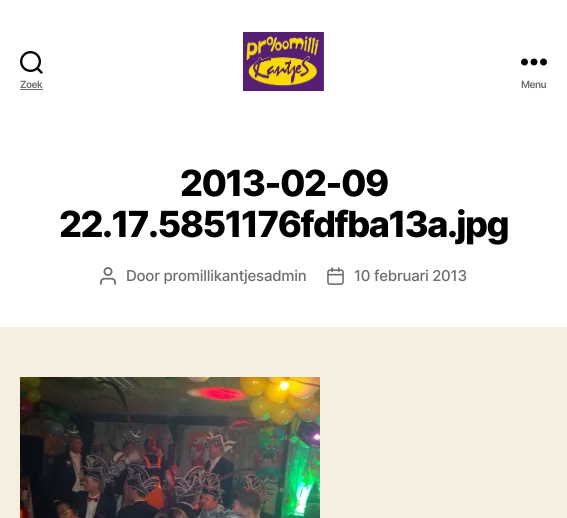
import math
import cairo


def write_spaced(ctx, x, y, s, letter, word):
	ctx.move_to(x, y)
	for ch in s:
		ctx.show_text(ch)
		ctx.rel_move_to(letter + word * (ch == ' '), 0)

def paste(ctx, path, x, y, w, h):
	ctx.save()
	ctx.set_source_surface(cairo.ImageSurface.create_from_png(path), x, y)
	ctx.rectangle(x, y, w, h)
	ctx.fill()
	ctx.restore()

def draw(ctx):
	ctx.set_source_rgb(0.961, 0.937, 0.878)
	ctx.paint()
	ctx.set_source_rgb(1, 1, 1)
	ctx.rectangle(0, 0, 567, 327)
	ctx.fill()
	paste(ctx, 'media/1.png', 20, 51, 23, 23)
	ctx.select_font_face('Inter SemiBold')
	ctx.set_font_size(10)
	ctx.set_source_rgb(0.427, 0.427, 0.427)
	write_spaced(ctx, 20, 88, 'Zoek', -0.5, 0)
	ctx.rectangle(20, 89, 23, 1)
	ctx.fill()
	paste(ctx, 'media/2.png', 243, 32, 81, 59)
	paste(ctx, 'media/3.png', 521, 58, 26, 8)
	write_spaced(ctx, 521, 88, 'Menu', -0.5, 0)
	ctx.select_font_face('Inter ExtraBold')
	ctx.set_font_size(36)
	ctx.set_source_rgb(0, 0, 0)
	write_spaced(ctx, 180, 196, '2013-02-09', -1.5, 0)
	write_spaced(ctx, 59, 237, '22.17.5851176fdfba13a.jpg', -1.5, 0)
	paste(ctx, 'media/4.png', 100, 267, 16, 18)
	ctx.select_font_face('Inter Medium')
	ctx.set_font_size(15)
	ctx.set_source_rgb(0.427, 0.427, 0.427)
	write_spaced(ctx, 126, 281, 'Door promillikantjesadmin', -0.25, 0)
	paste(ctx, 'media/5.png', 327, 267, 17, 18)
	write_spaced(ctx, 354, 281, '10 februari 2013', -0.25, 0)
	paste(ctx, 'media/6.png', 20, 377, 300, 141)


surface = cairo.ImageSurface(cairo.FORMAT_RGB24, 567, 518)
ctx = cairo.Context(surface)
options = cairo.FontOptions()
options.set_hint_metrics(cairo.HINT_METRICS_OFF)
options.set_hint_style(cairo.HINT_STYLE_NONE)
ctx.set_font_options(options)
ctx.set_miter_limit(4)
draw(ctx)
surface.write_to_png('image.png')
